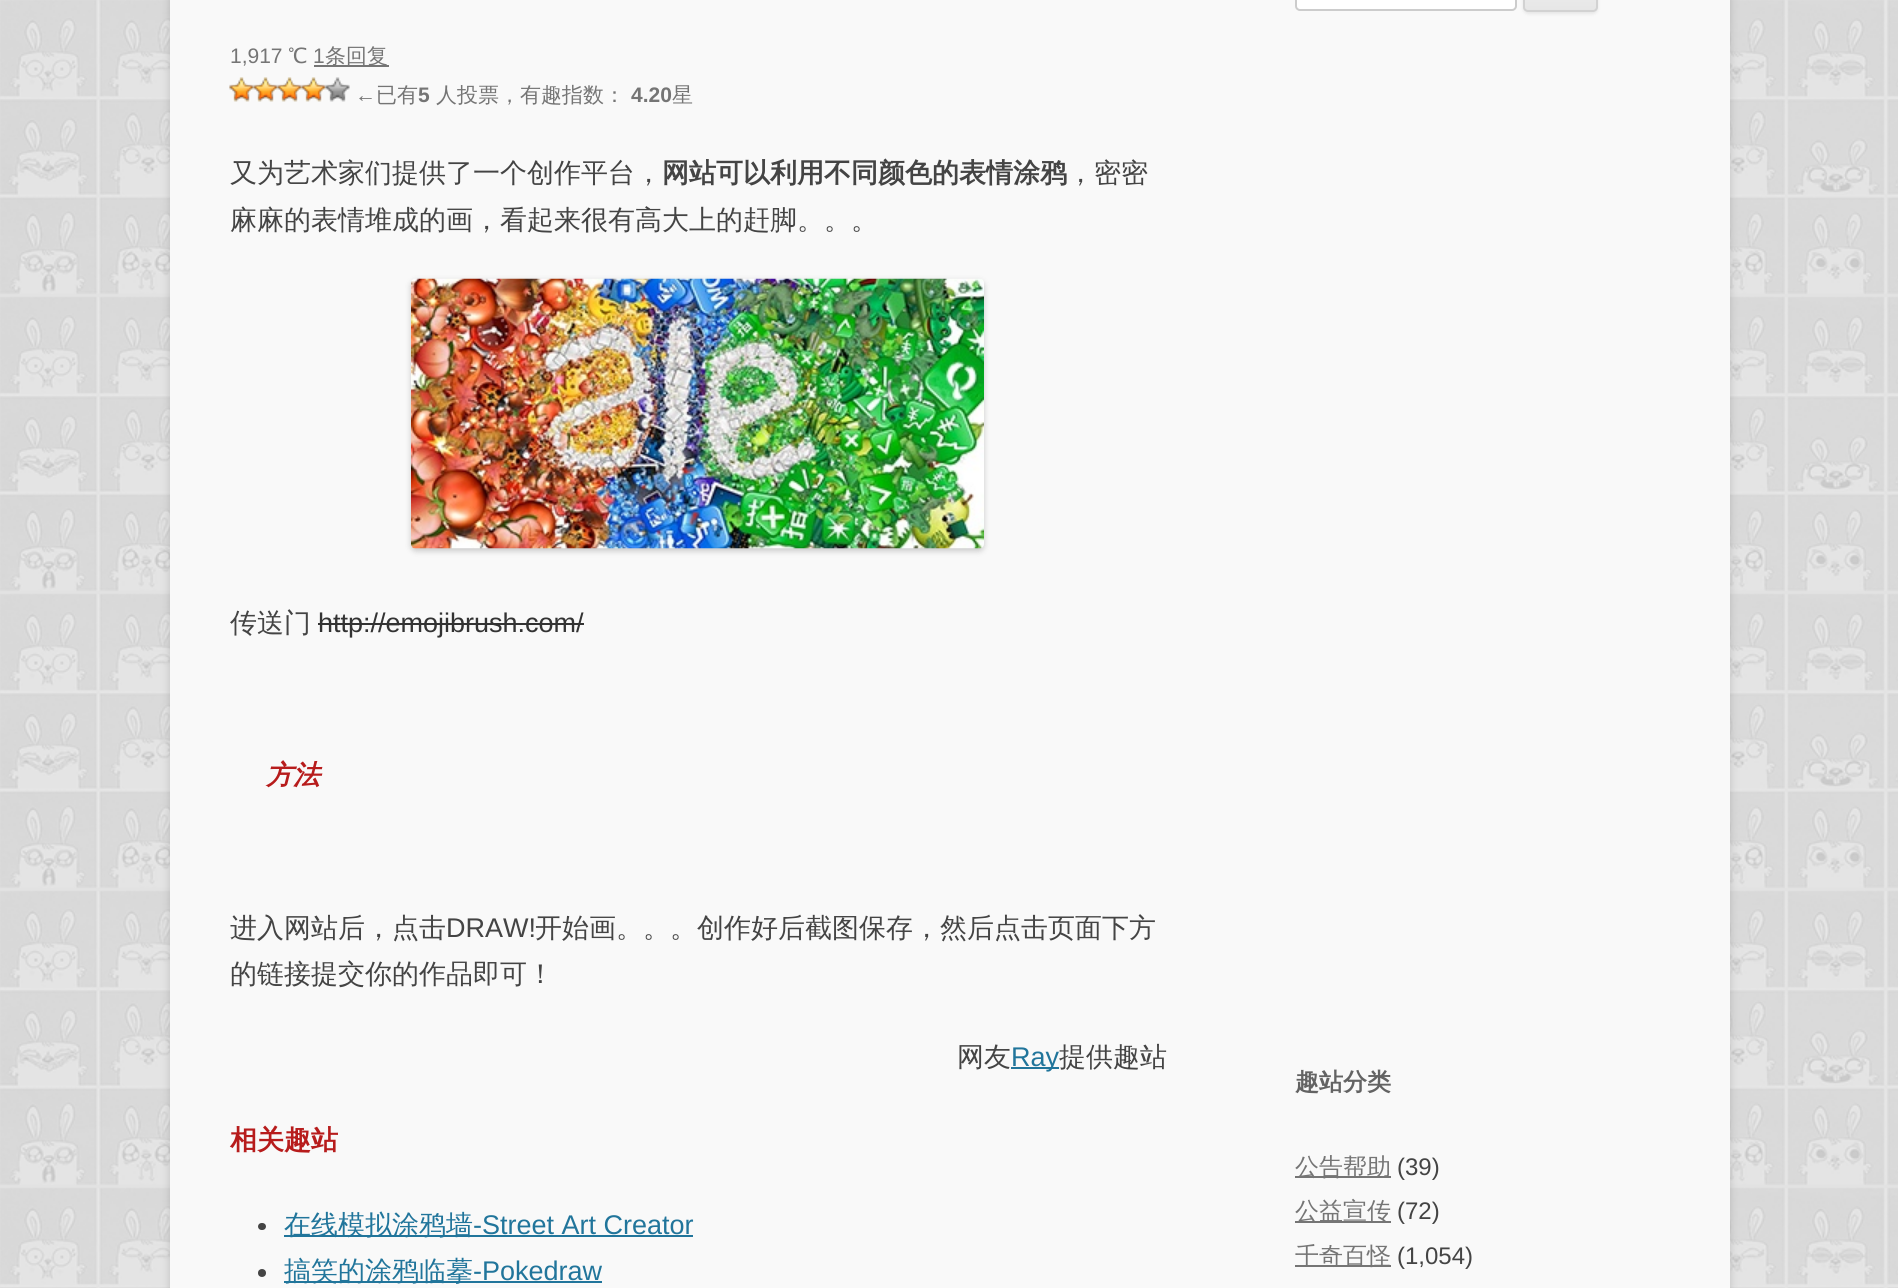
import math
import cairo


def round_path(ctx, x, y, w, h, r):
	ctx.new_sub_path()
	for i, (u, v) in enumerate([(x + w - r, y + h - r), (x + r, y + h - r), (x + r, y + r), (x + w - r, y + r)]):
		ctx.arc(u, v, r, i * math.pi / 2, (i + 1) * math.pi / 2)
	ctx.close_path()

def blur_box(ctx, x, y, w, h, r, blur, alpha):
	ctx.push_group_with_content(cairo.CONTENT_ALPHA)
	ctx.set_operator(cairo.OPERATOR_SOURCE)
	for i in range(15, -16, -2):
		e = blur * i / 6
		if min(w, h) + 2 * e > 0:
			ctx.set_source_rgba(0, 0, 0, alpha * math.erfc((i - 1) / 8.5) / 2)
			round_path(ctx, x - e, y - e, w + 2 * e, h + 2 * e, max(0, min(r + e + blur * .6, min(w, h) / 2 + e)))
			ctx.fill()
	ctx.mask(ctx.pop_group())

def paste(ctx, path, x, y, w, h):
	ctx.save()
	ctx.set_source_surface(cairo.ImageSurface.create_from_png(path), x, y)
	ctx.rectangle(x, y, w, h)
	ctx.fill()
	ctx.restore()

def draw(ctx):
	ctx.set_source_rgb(1, 1, 1)
	ctx.paint()
	paste(ctx, 'media/1.png', 0, 0, 1898, 1288)
	ctx.set_source_rgb(0.392, 0.392, 0.392)
	blur_box(ctx, 170, -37, 1560, 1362, 23, 4.5, 0.3)
	ctx.set_source_rgb(0.976, 0.976, 0.976)
	ctx.rectangle(170, 0, 1560, 1288)
	ctx.fill()
	ctx.select_font_face('Liberation Sans')
	ctx.set_font_size(21)
	ctx.set_source_rgb(0.459, 0.459, 0.459)
	ctx.move_to(230, 63)
	ctx.show_text('1,917')
	ctx.select_font_face('WenQuanYi Zen Hei Medium')
	ctx.move_to(288, 63)
	ctx.show_text('℃')
	ctx.select_font_face('Liberation Sans')
	ctx.move_to(313, 63)
	ctx.show_text('1')
	ctx.rectangle(314, 65, 75, 2)
	ctx.fill()
	ctx.select_font_face('WenQuanYi Zen Hei Medium')
	ctx.move_to(325, 63)
	ctx.show_text('条回复')
	paste(ctx, 'media/2.png', 229, 77, 25, 25)
	paste(ctx, 'media/3.png', 253, 77, 25, 25)
	paste(ctx, 'media/3.png', 277, 77, 25, 25)
	paste(ctx, 'media/3.png', 301, 77, 25, 25)
	paste(ctx, 'media/4.png', 325, 77, 25, 25)
	ctx.select_font_face('Liberation Sans')
	ctx.move_to(355, 102)
	ctx.show_text('←')
	ctx.select_font_face('WenQuanYi Zen Hei Medium')
	ctx.move_to(376, 102)
	ctx.show_text('已有')
	ctx.select_font_face('Liberation Sans', cairo.FONT_SLANT_NORMAL, cairo.FONT_WEIGHT_BOLD)
	ctx.move_to(418, 102)
	ctx.show_text('5')
	ctx.select_font_face('WenQuanYi Zen Hei Medium')
	ctx.move_to(436, 102)
	ctx.show_text('人投票，有趣指数：')
	ctx.select_font_face('Liberation Sans', cairo.FONT_SLANT_NORMAL, cairo.FONT_WEIGHT_BOLD)
	ctx.move_to(631, 102)
	ctx.show_text('4.20')
	ctx.select_font_face('WenQuanYi Zen Hei Medium')
	ctx.move_to(672, 102)
	ctx.show_text('星')
	ctx.set_font_size(27)
	ctx.set_source_rgb(0.267, 0.267, 0.267)
	ctx.move_to(230, 182)
	ctx.show_text('又为艺术家们提供了一个创作平台，')
	ctx.select_font_face('WenQuanYi Zen Hei', cairo.FONT_SLANT_NORMAL, cairo.FONT_WEIGHT_BOLD)
	ctx.move_to(662, 182)
	ctx.show_text('网站可以利用不同颜色的表情涂鸦')
	ctx.select_font_face('WenQuanYi Zen Hei Medium')
	ctx.move_to(1067, 182)
	ctx.show_text('，密密')
	ctx.move_to(230, 229)
	ctx.show_text('麻麻的表情堆成的画，看起来很有高大上的赶脚。。。')
	ctx.set_source_rgb(0, 0, 0)
	blur_box(ctx, 411, 281, 573, 270, 5, 3, 0.2)
	paste(ctx, 'media/5.png', 411, 278, 573, 271)
	ctx.set_source_rgb(0.267, 0.267, 0.267)
	ctx.move_to(230, 632)
	ctx.show_text('传送门')
	ctx.select_font_face('Liberation Sans')
	ctx.set_source_rgb(0.2, 0.2, 0.2)
	ctx.move_to(318, 632)
	ctx.show_text('http://emojibrush.com/')
	ctx.rectangle(318, 623, 266, 2)
	ctx.fill()
	ctx.select_font_face('WenQuanYi Zen Hei', cairo.FONT_SLANT_ITALIC, cairo.FONT_WEIGHT_BOLD)
	ctx.set_source_rgb(0.718, 0.11, 0.11)
	ctx.move_to(266, 784)
	ctx.show_text('方法')
	ctx.select_font_face('WenQuanYi Zen Hei Medium')
	ctx.set_source_rgb(0.267, 0.267, 0.267)
	ctx.move_to(230, 937)
	ctx.show_text('进入网站后，点击')
	ctx.select_font_face('Liberation Sans')
	ctx.move_to(446, 937)
	ctx.show_text('DRAW!')
	ctx.select_font_face('WenQuanYi Zen Hei Medium')
	for x, y, s in [
		(535, 937, '开始画。。。创作好后截图保存，然后点击页面下方'),
		(230, 983, '的链接提交你的作品即可！'),
		(957, 1066, '网友'),
	]:
		ctx.move_to(x, y)
		ctx.show_text(s)
	ctx.set_source_rgb(0.129, 0.459, 0.608)
	ctx.rectangle(1011, 1067, 48, 2)
	ctx.fill()
	ctx.select_font_face('Liberation Sans')
	ctx.move_to(1011, 1066)
	ctx.show_text('Ray')
	ctx.select_font_face('WenQuanYi Zen Hei Medium')
	ctx.set_source_rgb(0.267, 0.267, 0.267)
	ctx.move_to(1059, 1066)
	ctx.show_text('提供趣站')
	ctx.select_font_face('WenQuanYi Zen Hei', cairo.FONT_SLANT_NORMAL, cairo.FONT_WEIGHT_BOLD)
	ctx.set_source_rgb(0.718, 0.11, 0.11)
	ctx.move_to(230, 1149)
	ctx.show_text('相关趣站')
	ctx.set_source_rgb(0.267, 0.267, 0.267)
	round_path(ctx, 258, 1223, 8, 7, 3.5)
	ctx.fill()
	ctx.set_source_rgb(0.129, 0.459, 0.608)
	ctx.rectangle(284, 1235, 409, 2)
	ctx.fill()
	ctx.select_font_face('WenQuanYi Zen Hei Medium')
	ctx.move_to(284, 1234)
	ctx.show_text('在线模拟涂鸦墙')
	ctx.select_font_face('Liberation Sans')
	ctx.move_to(473, 1234)
	ctx.show_text('-Street Art Creator')
	ctx.set_source_rgb(0.267, 0.267, 0.267)
	ctx.new_path()
	ctx.arc(262, 1273, 4, 0, 2 * math.pi)
	ctx.fill()
	ctx.set_source_rgb(0.129, 0.459, 0.608)
	ctx.rectangle(284, 1281, 318, 2)
	ctx.fill()
	ctx.select_font_face('WenQuanYi Zen Hei Medium')
	ctx.move_to(284, 1280)
	ctx.show_text('搞笑的涂鸦临摹')
	ctx.select_font_face('Liberation Sans')
	ctx.move_to(473, 1280)
	ctx.show_text('-Pokedraw')
	ctx.set_source_rgb(1, 1, 1)
	round_path(ctx, 1296, -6, 220, 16, 4)
	ctx.fill_preserve()
	ctx.set_source_rgb(0.8, 0.8, 0.8)
	ctx.stroke()
	ctx.set_source_rgb(0.251, 0.251, 0.251)
	blur_box(ctx, 1523, -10, 75, 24, 5, 1.5, 0.1)
	ctx.save()
	round_path(ctx, 1523, -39, 75, 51, 5)
	ctx.clip()
	gradient = cairo.LinearGradient(1560, -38, 1560, 11)
	gradient.add_color_stop_rgba(0, 0.957, 0.957, 0.957, 1)
	gradient.add_color_stop_rgba(1, 0.902, 0.902, 0.902, 1)
	ctx.set_source(gradient)
	ctx.rectangle(1523, 0, 75, 11)
	ctx.fill()
	ctx.restore()
	round_path(ctx, 1524, -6, 73, 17, 4)
	ctx.set_source_rgb(0.824, 0.824, 0.824)
	ctx.stroke()
	ctx.select_font_face('WenQuanYi Zen Hei', cairo.FONT_SLANT_NORMAL, cairo.FONT_WEIGHT_BOLD)
	ctx.set_font_size(24)
	ctx.set_source_rgb(0.388, 0.388, 0.388)
	ctx.move_to(1295, 1090)
	ctx.show_text('趣站分类')
	ctx.set_source_rgb(0.459, 0.459, 0.459)
	ctx.rectangle(1295, 1176, 96, 2)
	ctx.fill()
	ctx.select_font_face('WenQuanYi Zen Hei Medium')
	ctx.move_to(1295, 1175)
	ctx.show_text('公告帮助')
	ctx.select_font_face('Liberation Sans')
	ctx.set_source_rgb(0.267, 0.267, 0.267)
	ctx.move_to(1397, 1175)
	ctx.show_text('(39)')
	ctx.set_source_rgb(0.459, 0.459, 0.459)
	ctx.rectangle(1295, 1221, 96, 2)
	ctx.fill()
	ctx.select_font_face('WenQuanYi Zen Hei Medium')
	ctx.move_to(1295, 1219)
	ctx.show_text('公益宣传')
	ctx.select_font_face('Liberation Sans')
	ctx.set_source_rgb(0.267, 0.267, 0.267)
	ctx.move_to(1397, 1219)
	ctx.show_text('(72)')
	ctx.set_source_rgb(0.459, 0.459, 0.459)
	ctx.rectangle(1295, 1265, 96, 2)
	ctx.fill()
	ctx.select_font_face('WenQuanYi Zen Hei Medium')
	ctx.move_to(1295, 1264)
	ctx.show_text('千奇百怪')
	ctx.select_font_face('Liberation Sans')
	ctx.set_source_rgb(0.267, 0.267, 0.267)
	ctx.move_to(1397, 1264)
	ctx.show_text('(1,054)')


surface = cairo.ImageSurface(cairo.FORMAT_RGB24, 1898, 1288)
ctx = cairo.Context(surface)
options = cairo.FontOptions()
options.set_hint_metrics(cairo.HINT_METRICS_OFF)
options.set_hint_style(cairo.HINT_STYLE_NONE)
ctx.set_font_options(options)
ctx.set_miter_limit(4)
draw(ctx)
surface.write_to_png('image.png')
